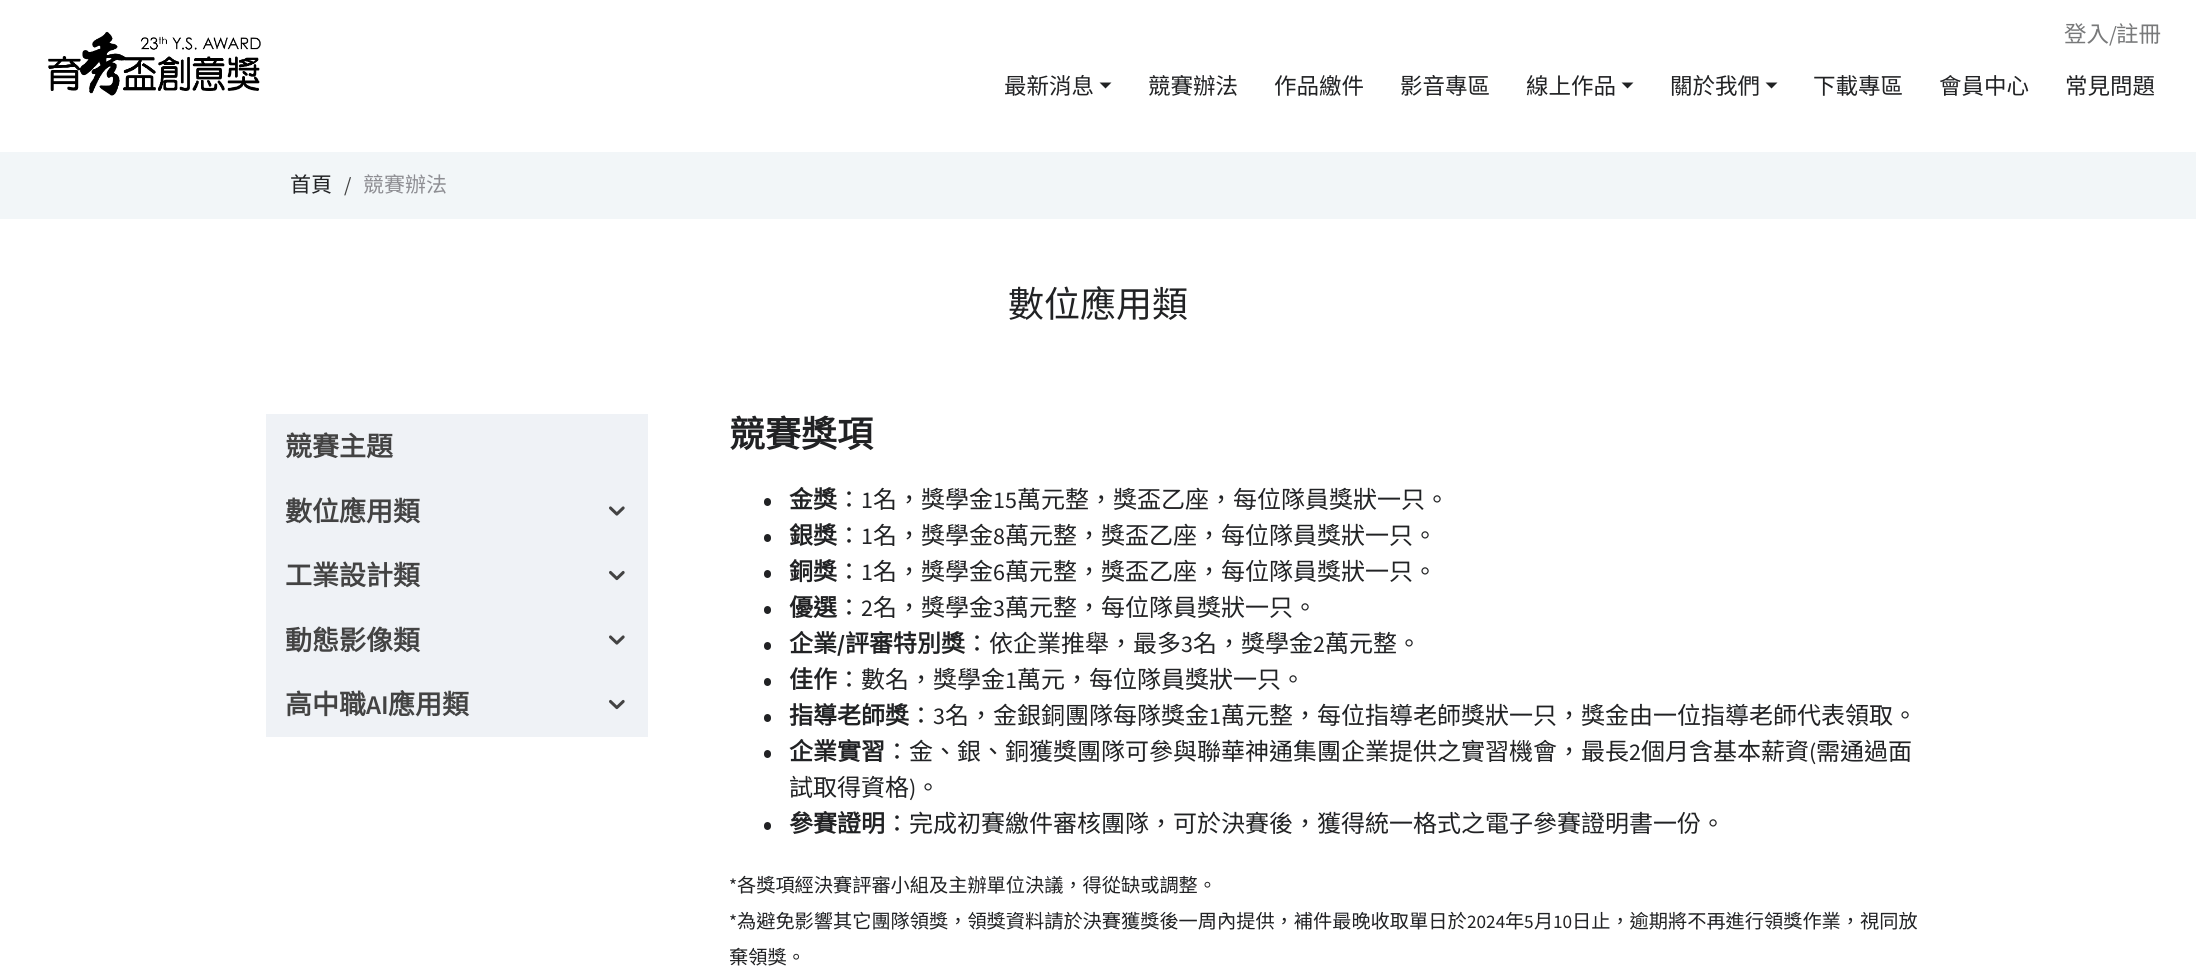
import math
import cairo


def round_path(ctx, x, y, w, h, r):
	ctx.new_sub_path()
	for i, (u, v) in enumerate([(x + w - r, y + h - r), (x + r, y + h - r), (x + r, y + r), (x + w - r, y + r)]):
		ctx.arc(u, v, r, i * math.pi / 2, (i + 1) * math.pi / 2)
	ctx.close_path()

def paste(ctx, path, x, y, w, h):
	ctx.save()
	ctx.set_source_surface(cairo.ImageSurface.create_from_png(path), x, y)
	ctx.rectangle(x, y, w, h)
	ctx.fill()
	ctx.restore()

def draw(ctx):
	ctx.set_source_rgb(1, 1, 1)
	ctx.paint()
	paste(ctx, 'media/1.png', 48, 31, 213, 65)
	ctx.select_font_face('Noto Sans CJK TC')
	ctx.set_font_size(22.5)
	ctx.set_source_rgb(0.471, 0.475, 0.478)
	ctx.move_to(2064, 42)
	ctx.show_text('登入')
	ctx.select_font_face('Source Sans Pro')
	ctx.move_to(2109, 42)
	ctx.show_text('/')
	ctx.select_font_face('Noto Sans CJK TC')
	ctx.move_to(2116, 42)
	ctx.show_text('註冊')
	ctx.set_source_rgb(0.129, 0.133, 0.141)
	ctx.move_to(1004, 94)
	ctx.show_text('最新消息')
	ctx.new_path()
	ctx.move_to(1099.5, 82.5)
	ctx.line_to(1111.5, 82.5)
	ctx.line_to(1105.5, 88.5)
	ctx.close_path()
	ctx.fill()
	for x, y, s in [
		(1148, 94, '競賽辦法'),
		(1274, 94, '作品繳件'),
		(1400, 94, '影音專區'),
		(1526, 94, '線上作品'),
	]:
		ctx.move_to(x, y)
		ctx.show_text(s)
	ctx.new_path()
	ctx.move_to(1621.5, 82.5)
	ctx.line_to(1633.5, 82.5)
	ctx.line_to(1627.5, 88.5)
	ctx.close_path()
	ctx.fill()
	ctx.move_to(1670, 94)
	ctx.show_text('關於我們')
	ctx.new_path()
	ctx.move_to(1765.5, 82.5)
	ctx.line_to(1777.5, 82.5)
	ctx.line_to(1771.5, 88.5)
	ctx.close_path()
	ctx.fill()
	for x, y, s in [
		(1813, 94, '下載專區'),
		(1939, 94, '會員中心'),
		(2065, 94, '常見問題'),
	]:
		ctx.move_to(x, y)
		ctx.show_text(s)
	ctx.set_source_rgb(0.949, 0.961, 0.969)
	ctx.rectangle(0, 152, 2196, 67)
	ctx.fill()
	ctx.set_font_size(21)
	ctx.set_source_rgb(0.129, 0.133, 0.141)
	ctx.move_to(290, 192)
	ctx.show_text('首頁')
	ctx.select_font_face('Source Sans Pro')
	ctx.set_source_rgb(0.263, 0.263, 0.263)
	ctx.move_to(344, 192)
	ctx.show_text('/')
	ctx.select_font_face('Noto Sans CJK TC')
	ctx.set_source_rgb(0.557, 0.557, 0.576)
	ctx.move_to(363, 192)
	ctx.show_text('競賽辦法')
	ctx.set_font_size(36)
	ctx.set_source_rgb(0.129, 0.133, 0.141)
	ctx.move_to(1008, 317)
	ctx.show_text('數位應用類')
	ctx.set_source_rgb(0.937, 0.949, 0.961)
	ctx.rectangle(266, 414, 382, 323)
	ctx.fill()
	ctx.select_font_face('Noto Sans CJK TC', cairo.FONT_SLANT_NORMAL, cairo.FONT_WEIGHT_BOLD)
	ctx.set_font_size(27)
	ctx.set_source_rgb(0.263, 0.263, 0.263)
	ctx.move_to(285, 456)
	ctx.show_text('競賽主題')
	ctx.move_to(285, 521)
	ctx.show_text('數位應用類')
	paste(ctx, 'media/2.png', 609, 506, 16, 10)
	ctx.move_to(285, 585)
	ctx.show_text('工業設計類')
	paste(ctx, 'media/3.png', 609, 570, 16, 11)
	ctx.move_to(285, 650)
	ctx.show_text('動態影像類')
	paste(ctx, 'media/2.png', 609, 635, 16, 10)
	ctx.move_to(285, 714)
	ctx.show_text('高中職')
	ctx.select_font_face('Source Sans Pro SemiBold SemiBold')
	ctx.move_to(366, 714)
	ctx.show_text('AI')
	ctx.select_font_face('Noto Sans CJK TC', cairo.FONT_SLANT_NORMAL, cairo.FONT_WEIGHT_BOLD)
	ctx.move_to(388, 714)
	ctx.show_text('應用類')
	paste(ctx, 'media/3.png', 609, 699, 16, 11)
	ctx.set_font_size(36)
	ctx.set_source_rgb(0.129, 0.133, 0.141)
	ctx.move_to(729, 447)
	ctx.show_text('競賽獎項')
	round_path(ctx, 764, 498, 7, 8, 3.5)
	ctx.fill()
	ctx.set_font_size(24)
	ctx.move_to(789, 508)
	ctx.show_text('金獎')
	ctx.select_font_face('Noto Sans CJK TC')
	ctx.move_to(837, 508)
	ctx.show_text('：')
	ctx.select_font_face('Source Sans Pro')
	ctx.move_to(861, 508)
	ctx.show_text('1')
	ctx.select_font_face('Noto Sans CJK TC')
	ctx.move_to(873, 508)
	ctx.show_text('名，獎學金')
	ctx.select_font_face('Source Sans Pro')
	ctx.move_to(993, 508)
	ctx.show_text('15')
	ctx.select_font_face('Noto Sans CJK TC')
	ctx.move_to(1017, 508)
	ctx.show_text('萬元整，獎盃乙座，每位隊員獎狀一只。')
	round_path(ctx, 764, 534, 7, 8, 3.5)
	ctx.fill()
	ctx.select_font_face('Noto Sans CJK TC', cairo.FONT_SLANT_NORMAL, cairo.FONT_WEIGHT_BOLD)
	ctx.move_to(789, 544)
	ctx.show_text('銀獎')
	ctx.select_font_face('Noto Sans CJK TC')
	ctx.move_to(837, 544)
	ctx.show_text('：')
	ctx.select_font_face('Source Sans Pro')
	ctx.move_to(861, 544)
	ctx.show_text('1')
	ctx.select_font_face('Noto Sans CJK TC')
	ctx.move_to(873, 544)
	ctx.show_text('名，獎學金')
	ctx.select_font_face('Source Sans Pro')
	ctx.move_to(993, 544)
	ctx.show_text('8')
	ctx.select_font_face('Noto Sans CJK TC')
	ctx.move_to(1005, 544)
	ctx.show_text('萬元整，獎盃乙座，每位隊員獎狀一只。')
	round_path(ctx, 764, 570, 7, 8, 3.5)
	ctx.fill()
	ctx.select_font_face('Noto Sans CJK TC', cairo.FONT_SLANT_NORMAL, cairo.FONT_WEIGHT_BOLD)
	ctx.move_to(789, 580)
	ctx.show_text('銅獎')
	ctx.select_font_face('Noto Sans CJK TC')
	ctx.move_to(837, 580)
	ctx.show_text('：')
	ctx.select_font_face('Source Sans Pro')
	ctx.move_to(861, 580)
	ctx.show_text('1')
	ctx.select_font_face('Noto Sans CJK TC')
	ctx.move_to(873, 580)
	ctx.show_text('名，獎學金')
	ctx.select_font_face('Source Sans Pro')
	ctx.move_to(993, 580)
	ctx.show_text('6')
	ctx.select_font_face('Noto Sans CJK TC')
	ctx.move_to(1005, 580)
	ctx.show_text('萬元整，獎盃乙座，每位隊員獎狀一只。')
	round_path(ctx, 764, 606, 7, 8, 3.5)
	ctx.fill()
	ctx.select_font_face('Noto Sans CJK TC', cairo.FONT_SLANT_NORMAL, cairo.FONT_WEIGHT_BOLD)
	ctx.move_to(789, 616)
	ctx.show_text('優選')
	ctx.select_font_face('Noto Sans CJK TC')
	ctx.move_to(837, 616)
	ctx.show_text('：')
	ctx.select_font_face('Source Sans Pro')
	ctx.move_to(861, 616)
	ctx.show_text('2')
	ctx.select_font_face('Noto Sans CJK TC')
	ctx.move_to(873, 616)
	ctx.show_text('名，獎學金')
	ctx.select_font_face('Source Sans Pro')
	ctx.move_to(993, 616)
	ctx.show_text('3')
	ctx.select_font_face('Noto Sans CJK TC')
	ctx.move_to(1005, 616)
	ctx.show_text('萬元整，每位隊員獎狀一只。')
	round_path(ctx, 764, 642, 7, 8, 3.5)
	ctx.fill()
	ctx.select_font_face('Noto Sans CJK TC', cairo.FONT_SLANT_NORMAL, cairo.FONT_WEIGHT_BOLD)
	ctx.move_to(789, 652)
	ctx.show_text('企業')
	ctx.select_font_face('Source Sans Pro', cairo.FONT_SLANT_NORMAL, cairo.FONT_WEIGHT_BOLD)
	ctx.move_to(837, 652)
	ctx.show_text('/')
	ctx.select_font_face('Noto Sans CJK TC', cairo.FONT_SLANT_NORMAL, cairo.FONT_WEIGHT_BOLD)
	ctx.move_to(845, 652)
	ctx.show_text('評審特別獎')
	ctx.select_font_face('Noto Sans CJK TC')
	ctx.move_to(965, 652)
	ctx.show_text('：依企業推舉，最多')
	ctx.select_font_face('Source Sans Pro')
	ctx.move_to(1181, 652)
	ctx.show_text('3')
	ctx.select_font_face('Noto Sans CJK TC')
	ctx.move_to(1193, 652)
	ctx.show_text('名，獎學金')
	ctx.select_font_face('Source Sans Pro')
	ctx.move_to(1313, 652)
	ctx.show_text('2')
	ctx.select_font_face('Noto Sans CJK TC')
	ctx.move_to(1325, 652)
	ctx.show_text('萬元整。')
	round_path(ctx, 764, 678, 7, 8, 3.5)
	ctx.fill()
	ctx.select_font_face('Noto Sans CJK TC', cairo.FONT_SLANT_NORMAL, cairo.FONT_WEIGHT_BOLD)
	ctx.move_to(789, 688)
	ctx.show_text('佳作')
	ctx.select_font_face('Noto Sans CJK TC')
	ctx.move_to(837, 688)
	ctx.show_text('：數名，獎學金')
	ctx.select_font_face('Source Sans Pro')
	ctx.move_to(1005, 688)
	ctx.show_text('1')
	ctx.select_font_face('Noto Sans CJK TC')
	ctx.move_to(1017, 688)
	ctx.show_text('萬元，每位隊員獎狀一只。')
	round_path(ctx, 764, 714, 7, 8, 3.5)
	ctx.fill()
	ctx.select_font_face('Noto Sans CJK TC', cairo.FONT_SLANT_NORMAL, cairo.FONT_WEIGHT_BOLD)
	ctx.move_to(789, 724)
	ctx.show_text('指導老師獎')
	ctx.select_font_face('Noto Sans CJK TC')
	ctx.move_to(909, 724)
	ctx.show_text('：')
	ctx.select_font_face('Source Sans Pro')
	ctx.move_to(933, 724)
	ctx.show_text('3')
	ctx.select_font_face('Noto Sans CJK TC')
	ctx.move_to(945, 724)
	ctx.show_text('名，金銀銅團隊每隊獎金')
	ctx.select_font_face('Source Sans Pro')
	ctx.move_to(1209, 724)
	ctx.show_text('1')
	ctx.select_font_face('Noto Sans CJK TC')
	ctx.move_to(1221, 724)
	ctx.show_text('萬元整，每位指導老師獎狀一只，獎金由一位指導老師代表領取。')
	round_path(ctx, 764, 750, 7, 8, 3.5)
	ctx.fill()
	ctx.select_font_face('Noto Sans CJK TC', cairo.FONT_SLANT_NORMAL, cairo.FONT_WEIGHT_BOLD)
	ctx.move_to(789, 760)
	ctx.show_text('企業實習')
	ctx.select_font_face('Noto Sans CJK TC')
	ctx.move_to(885, 760)
	ctx.show_text('：金、銀、銅獲獎團隊可參與聯華神通集團企業提供之實習機會，最長')
	ctx.select_font_face('Source Sans Pro')
	ctx.move_to(1629, 760)
	ctx.show_text('2')
	ctx.select_font_face('Noto Sans CJK TC')
	ctx.move_to(1641, 760)
	ctx.show_text('個月含基本薪資')
	ctx.select_font_face('Source Sans Pro')
	ctx.move_to(1809, 760)
	ctx.show_text('(')
	ctx.select_font_face('Noto Sans CJK TC')
	ctx.move_to(1816, 760)
	ctx.show_text('需通過面')
	ctx.move_to(789, 796)
	ctx.show_text('試取得資格')
	ctx.select_font_face('Source Sans Pro')
	ctx.move_to(909, 796)
	ctx.show_text(')')
	ctx.select_font_face('Noto Sans CJK TC')
	ctx.move_to(916, 796)
	ctx.show_text('。')
	round_path(ctx, 764, 822, 7, 8, 3.5)
	ctx.fill()
	ctx.select_font_face('Noto Sans CJK TC', cairo.FONT_SLANT_NORMAL, cairo.FONT_WEIGHT_BOLD)
	ctx.move_to(789, 832)
	ctx.show_text('參賽證明')
	ctx.select_font_face('Noto Sans CJK TC')
	ctx.move_to(885, 832)
	ctx.show_text('：完成初賽繳件審核團隊，可於決賽後，獲得統一格式之電子參賽證明書一份。')
	ctx.select_font_face('Source Sans Pro')
	ctx.set_font_size(19.2)
	ctx.move_to(729, 892)
	ctx.show_text('*')
	ctx.select_font_face('Noto Sans CJK TC')
	ctx.move_to(737, 892)
	ctx.show_text('各獎項經決賽評審小組及主辦單位決議，得從缺或調整。')
	ctx.select_font_face('Source Sans Pro')
	ctx.move_to(729, 928)
	ctx.show_text('*')
	ctx.select_font_face('Noto Sans CJK TC')
	ctx.move_to(737, 928)
	ctx.show_text('為避免影響其它團隊領獎，領獎資料請於決賽獲獎後一周內提供，補件最晚收取單日於')
	ctx.select_font_face('Source Sans Pro')
	ctx.move_to(1467, 928)
	ctx.show_text('2024')
	ctx.select_font_face('Noto Sans CJK TC')
	ctx.move_to(1505, 928)
	ctx.show_text('年')
	ctx.select_font_face('Source Sans Pro')
	ctx.move_to(1524, 928)
	ctx.show_text('5')
	ctx.select_font_face('Noto Sans CJK TC')
	ctx.move_to(1534, 928)
	ctx.show_text('月')
	ctx.select_font_face('Source Sans Pro')
	ctx.move_to(1553, 928)
	ctx.show_text('10')
	ctx.select_font_face('Noto Sans CJK TC')
	ctx.move_to(1572, 928)
	ctx.show_text('日止，逾期將不再進行領獎作業，視同放')
	ctx.move_to(729, 964)
	ctx.show_text('棄領獎。')


surface = cairo.ImageSurface(cairo.FORMAT_RGB24, 2196, 968)
ctx = cairo.Context(surface)
options = cairo.FontOptions()
options.set_hint_metrics(cairo.HINT_METRICS_OFF)
options.set_hint_style(cairo.HINT_STYLE_NONE)
ctx.set_font_options(options)
ctx.set_miter_limit(4)
draw(ctx)
surface.write_to_png('image.png')
